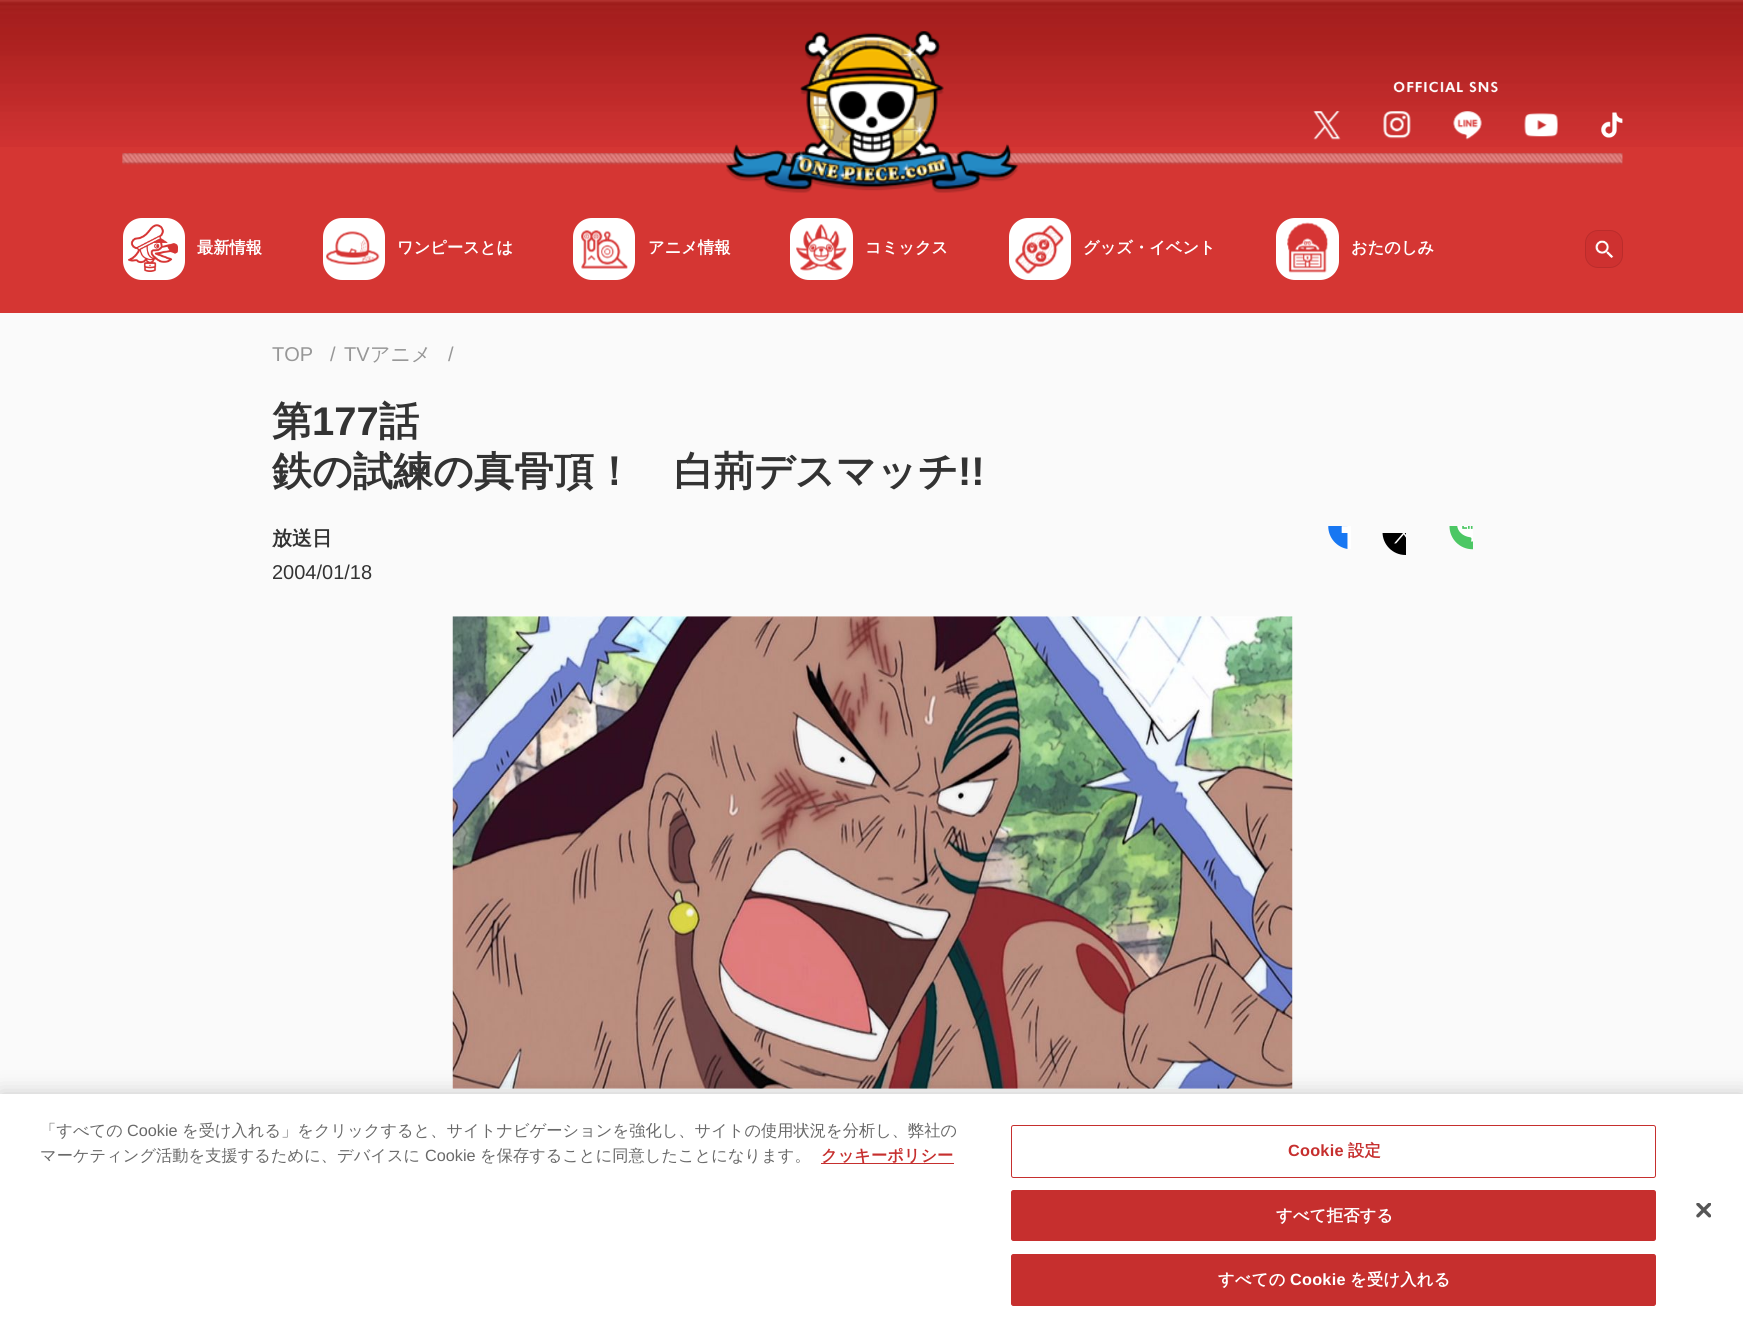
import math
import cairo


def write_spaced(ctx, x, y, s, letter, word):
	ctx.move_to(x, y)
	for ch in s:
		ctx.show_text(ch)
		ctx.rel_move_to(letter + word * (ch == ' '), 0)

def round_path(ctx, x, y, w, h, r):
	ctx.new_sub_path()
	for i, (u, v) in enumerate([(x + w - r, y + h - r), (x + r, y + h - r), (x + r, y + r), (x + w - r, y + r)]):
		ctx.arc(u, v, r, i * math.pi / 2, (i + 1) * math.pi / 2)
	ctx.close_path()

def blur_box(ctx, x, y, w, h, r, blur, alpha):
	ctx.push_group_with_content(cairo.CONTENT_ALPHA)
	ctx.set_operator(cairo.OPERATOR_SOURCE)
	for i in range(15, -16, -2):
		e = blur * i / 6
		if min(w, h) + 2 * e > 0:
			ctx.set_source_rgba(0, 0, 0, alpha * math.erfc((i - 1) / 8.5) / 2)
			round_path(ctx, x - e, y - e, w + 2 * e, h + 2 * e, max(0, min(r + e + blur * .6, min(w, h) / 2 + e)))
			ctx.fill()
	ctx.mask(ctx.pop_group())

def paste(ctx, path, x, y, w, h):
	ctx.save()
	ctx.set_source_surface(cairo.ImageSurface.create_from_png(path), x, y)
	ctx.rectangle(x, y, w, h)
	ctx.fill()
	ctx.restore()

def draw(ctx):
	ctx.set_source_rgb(0.98, 0.98, 0.98)
	ctx.paint()
	ctx.set_source_rgb(0.835, 0.212, 0.2)
	ctx.rectangle(0, 147, 1743, 166)
	ctx.fill()
	paste(ctx, 'media/1.png', 0, 0, 1743, 147)
	paste(ctx, 'media/3.png', 122, 153, 1501, 12)
	paste(ctx, 'media/2.png', 726, 31, 293, 162)
	paste(ctx, 'media/4.png', 1393, 81, 105, 12)
	paste(ctx, 'media/5.png', 1313, 111, 28, 29)
	paste(ctx, 'media/6.png', 1383, 111, 28, 28)
	paste(ctx, 'media/7.png', 1453, 111, 29, 29)
	paste(ctx, 'media/8.png', 1524, 113, 34, 24)
	paste(ctx, 'media/9.png', 1601, 112, 22, 26)
	ctx.set_source_rgb(1, 1, 1)
	round_path(ctx, 123, 218, 62, 62, 19)
	ctx.fill()
	paste(ctx, 'media/10.png', 128, 224, 50, 48)
	ctx.select_font_face('WenQuanYi Zen Hei', cairo.FONT_SLANT_NORMAL, cairo.FONT_WEIGHT_BOLD)
	ctx.set_font_size(16.25)
	ctx.move_to(197, 253)
	ctx.show_text('最新情報')
	round_path(ctx, 323, 218, 62, 62, 19)
	ctx.fill()
	paste(ctx, 'media/11.png', 326, 231, 54, 34)
	ctx.move_to(397, 253)
	ctx.show_text('ワンピースとは')
	round_path(ctx, 573, 218, 62, 62, 19)
	ctx.fill()
	paste(ctx, 'media/12.png', 581, 230, 47, 39)
	ctx.move_to(648, 253)
	ctx.show_text('アニメ情報')
	round_path(ctx, 790, 218, 63, 62, 19)
	ctx.fill()
	paste(ctx, 'media/13.png', 796, 224, 51, 47)
	ctx.move_to(865, 253)
	ctx.show_text('コミックス')
	round_path(ctx, 1009, 218, 62, 62, 19)
	ctx.fill()
	paste(ctx, 'media/14.png', 1015, 225, 49, 49)
	ctx.move_to(1083, 253)
	ctx.show_text('グッズ・イベント')
	round_path(ctx, 1276, 218, 63, 62, 19)
	ctx.fill()
	paste(ctx, 'media/15.png', 1287, 222, 42, 51)
	ctx.move_to(1351, 253)
	ctx.show_text('おたのしみ')
	ctx.set_source_rgb(0.808, 0.192, 0.188)
	round_path(ctx, 1585, 230, 38, 38, 13)
	ctx.fill()
	round_path(ctx, 1585.5, 230.5, 37, 37, 12.5)
	ctx.set_source_rgba(0, 0, 0, 0.1)
	ctx.set_line_width(1)
	ctx.stroke()
	paste(ctx, 'media/16.png', 1595, 240, 19, 18)
	ctx.select_font_face('Liberation Sans')
	ctx.set_font_size(20)
	ctx.set_source_rgb(0.592, 0.592, 0.592)
	for x, y, s in [
		(272, 361, 'TOP'),
		(330, 361, '/'),
		(344, 361, 'TV'),
	]:
		ctx.move_to(x, y)
		ctx.show_text(s)
	ctx.select_font_face('WenQuanYi Zen Hei Medium')
	ctx.move_to(370, 361)
	ctx.show_text('アニメ')
	ctx.select_font_face('Liberation Sans')
	ctx.move_to(448, 361)
	ctx.show_text('/')
	ctx.select_font_face('WenQuanYi Zen Hei', cairo.FONT_SLANT_NORMAL, cairo.FONT_WEIGHT_BOLD)
	ctx.set_font_size(40)
	ctx.set_source_rgb(0.2, 0.2, 0.2)
	ctx.move_to(272, 435)
	ctx.show_text('第')
	ctx.select_font_face('Liberation Sans', cairo.FONT_SLANT_NORMAL, cairo.FONT_WEIGHT_BOLD)
	ctx.move_to(312, 435)
	ctx.show_text('177')
	ctx.select_font_face('WenQuanYi Zen Hei', cairo.FONT_SLANT_NORMAL, cairo.FONT_WEIGHT_BOLD)
	ctx.move_to(379, 435)
	ctx.show_text('話')
	ctx.move_to(272, 485)
	ctx.show_text('鉄の試練の真骨頂！　白荊デスマッチ')
	ctx.select_font_face('Liberation Sans', cairo.FONT_SLANT_NORMAL, cairo.FONT_WEIGHT_BOLD)
	ctx.move_to(958, 485)
	ctx.show_text('!!')
	ctx.select_font_face('WenQuanYi Zen Hei', cairo.FONT_SLANT_NORMAL, cairo.FONT_WEIGHT_BOLD)
	ctx.set_font_size(20)
	ctx.move_to(272, 545)
	ctx.show_text('放送日')
	ctx.select_font_face('Liberation Sans')
	ctx.move_to(272, 579)
	ctx.show_text('2004/01/18')
	paste(ctx, 'media/17.png', 1328, 526, 23, 23)
	paste(ctx, 'media/18.png', 1382, 533, 24, 22)
	paste(ctx, 'media/19.png', 1449, 526, 24, 24)
	paste(ctx, 'media/20.png', 452, 616, 841, 473)
	ctx.set_source_rgb(0, 0, 0)
	blur_box(ctx, 0, 1094, 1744, 237, 0, 11, 0.2)
	ctx.set_source_rgb(1, 1, 1)
	ctx.rectangle(0, 1094, 1743, 237)
	ctx.fill()
	ctx.select_font_face('WenQuanYi Zen Hei Medium')
	ctx.set_font_size(16.25)
	ctx.set_source_rgb(0.412, 0.412, 0.412)
	ctx.move_to(40, 1136)
	ctx.show_text('「すべての')
	ctx.select_font_face('Liberation Sans')
	ctx.move_to(127, 1136)
	ctx.show_text('Cookie')
	ctx.select_font_face('WenQuanYi Zen Hei Medium')
	ctx.move_to(182, 1136)
	ctx.show_text('を受け入れる」をクリックすると、サイトナビゲーションを強化し、サイトの使用状況を分析し、弊社の')
	ctx.move_to(40, 1161)
	ctx.show_text('マーケティング活動を支援するために、デバイスに')
	ctx.select_font_face('Liberation Sans')
	ctx.move_to(425, 1161)
	ctx.show_text('Cookie')
	ctx.select_font_face('WenQuanYi Zen Hei Medium')
	ctx.move_to(480, 1161)
	ctx.show_text('を保存することに同意したことになります。')
	ctx.set_source_rgb(0.776, 0.184, 0.18)
	ctx.rectangle(821, 1163, 133, 1)
	ctx.fill()
	ctx.select_font_face('WenQuanYi Zen Hei', cairo.FONT_SLANT_NORMAL, cairo.FONT_WEIGHT_BOLD)
	ctx.move_to(821, 1161)
	ctx.show_text('クッキーポリシー')
	round_path(ctx, 1011.5, 1125.5, 644, 52, 2)
	ctx.stroke()
	ctx.select_font_face('Liberation Sans', cairo.FONT_SLANT_NORMAL, cairo.FONT_WEIGHT_BOLD)
	write_spaced(ctx, 1288, 1156, 'Cookie', 0.25, 0)
	ctx.select_font_face('WenQuanYi Zen Hei', cairo.FONT_SLANT_NORMAL, cairo.FONT_WEIGHT_BOLD)
	write_spaced(ctx, 1348, 1156, '設定', 0.25, 0)
	round_path(ctx, 1011.5, 1190.5, 644, 50, 2)
	ctx.fill_preserve()
	ctx.stroke()
	ctx.set_source_rgb(1, 1, 1)
	write_spaced(ctx, 1276, 1221, 'すべて拒否する', 0.25, 0)
	ctx.set_source_rgb(0.776, 0.184, 0.18)
	round_path(ctx, 1011.5, 1254.5, 644, 51, 2)
	ctx.fill_preserve()
	ctx.stroke()
	ctx.set_source_rgb(1, 1, 1)
	write_spaced(ctx, 1218, 1285, 'すべての', 0.25, 0)
	ctx.select_font_face('Liberation Sans', cairo.FONT_SLANT_NORMAL, cairo.FONT_WEIGHT_BOLD)
	write_spaced(ctx, 1290, 1285, 'Cookie', 0.25, 0)
	ctx.select_font_face('WenQuanYi Zen Hei', cairo.FONT_SLANT_NORMAL, cairo.FONT_WEIGHT_BOLD)
	write_spaced(ctx, 1350, 1285, 'を受け入れる', 0.25, 0)
	paste(ctx, 'media/21.png', 1696, 1203, 15, 15)


surface = cairo.ImageSurface(cairo.FORMAT_RGB24, 1743, 1331)
ctx = cairo.Context(surface)
options = cairo.FontOptions()
options.set_hint_metrics(cairo.HINT_METRICS_OFF)
options.set_hint_style(cairo.HINT_STYLE_NONE)
ctx.set_font_options(options)
ctx.set_miter_limit(4)
draw(ctx)
surface.write_to_png('image.png')
